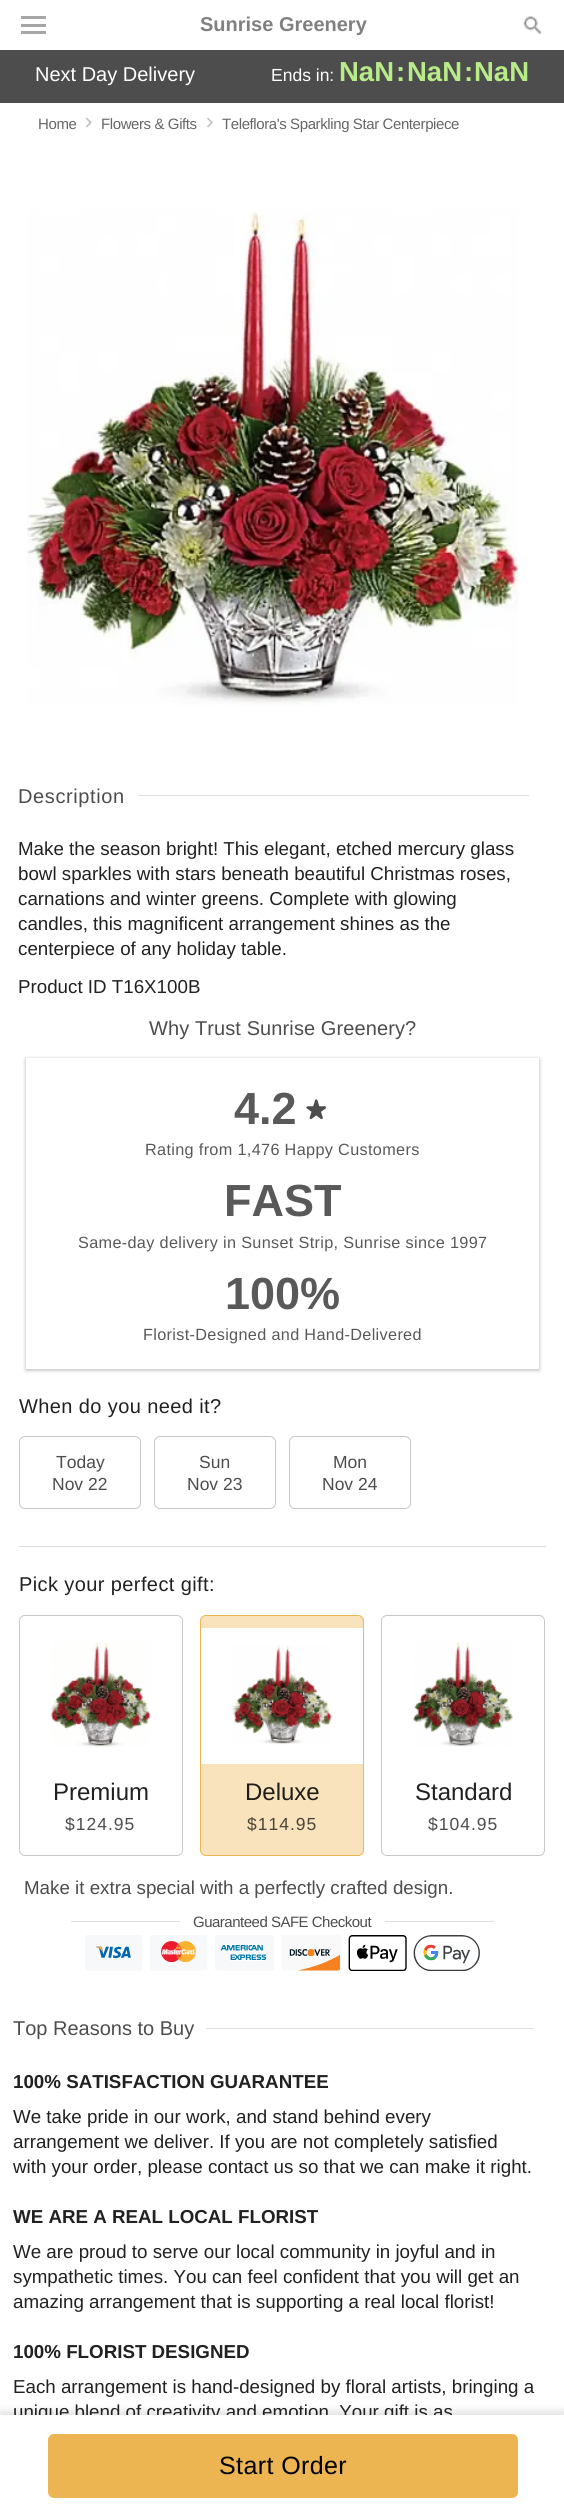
import math
import cairo


def write_spaced(ctx, x, y, s, letter, word):
	ctx.move_to(x, y)
	for ch in s:
		ctx.show_text(ch)
		ctx.rel_move_to(letter + word * (ch == ' '), 0)

def round_path(ctx, x, y, w, h, r):
	ctx.new_sub_path()
	for i, (u, v) in enumerate([(x + w - r, y + h - r), (x + r, y + h - r), (x + r, y + r), (x + w - r, y + r)]):
		ctx.arc(u, v, r, i * math.pi / 2, (i + 1) * math.pi / 2)
	ctx.close_path()

def blur_box(ctx, x, y, w, h, r, blur, alpha):
	ctx.push_group_with_content(cairo.CONTENT_ALPHA)
	ctx.set_operator(cairo.OPERATOR_SOURCE)
	for i in range(15, -16, -2):
		e = blur * i / 6
		if min(w, h) + 2 * e > 0:
			ctx.set_source_rgba(0, 0, 0, alpha * math.erfc((i - 1) / 8.5) / 2)
			round_path(ctx, x - e, y - e, w + 2 * e, h + 2 * e, max(0, min(r + e + blur * .6, min(w, h) / 2 + e)))
			ctx.fill()
	ctx.mask(ctx.pop_group())

def paste(ctx, path, x, y, w, h):
	ctx.save()
	ctx.set_source_surface(cairo.ImageSurface.create_from_png(path), x, y)
	ctx.rectangle(x, y, w, h)
	ctx.fill()
	ctx.restore()

def draw(ctx):
	ctx.set_source_rgb(1, 1, 1)
	ctx.paint()
	ctx.set_source_rgb(0.651, 0.651, 0.651)
	ctx.rectangle(21, 24, 25, 3)
	ctx.rectangle(21, 16, 25, 3)
	ctx.rectangle(21, 31, 25, 3)
	ctx.fill()
	ctx.select_font_face('Liberation Sans', cairo.FONT_SLANT_NORMAL, cairo.FONT_WEIGHT_BOLD)
	ctx.set_font_size(20)
	ctx.set_source_rgb(0.502, 0.502, 0.502)
	ctx.move_to(200, 31)
	ctx.show_text('Sunrise Greenery')
	paste(ctx, 'media/1.png', 523, 16, 19, 18)
	ctx.set_source_rgb(0.302, 0.302, 0.302)
	ctx.rectangle(0, 50, 564, 53)
	ctx.fill()
	ctx.select_font_face('Liberation Sans')
	ctx.set_source_rgb(1, 1, 1)
	ctx.move_to(35, 81)
	ctx.show_text('Next Day Delivery')
	ctx.set_font_size(17.5)
	ctx.move_to(271, 81)
	ctx.show_text('Ends in:')
	ctx.select_font_face('Liberation Sans', cairo.FONT_SLANT_NORMAL, cairo.FONT_WEIGHT_BOLD)
	ctx.set_font_size(27.5)
	ctx.set_source_rgb(0.722, 0.922, 0.537)
	for x, y, s in [
		(339, 81, 'NaN'),
		(396, 81, ':'),
		(407, 81, 'NaN'),
		(464, 81, ':'),
		(474, 81, 'NaN'),
	]:
		ctx.move_to(x, y)
		ctx.show_text(s)
	ctx.select_font_face('Liberation Sans')
	ctx.set_font_size(15)
	ctx.set_source_rgb(0.4, 0.4, 0.4)
	write_spaced(ctx, 38, 129, 'Home', -0.4, 0)
	paste(ctx, 'media/2.png', 85, 117, 7, 11)
	write_spaced(ctx, 101, 129, 'Flowers & Gifts', -0.4, 0)
	paste(ctx, 'media/3.png', 207, 117, 6, 11)
	write_spaced(ctx, 222, 129, 'Teleflora\'s Sparkling Star Centerpiece', -0.4, 0)
	paste(ctx, 'media/4.png', 27, 209, 492, 497)
	ctx.set_font_size(20)
	ctx.set_source_rgb(0.302, 0.302, 0.302)
	write_spaced(ctx, 18, 803, 'Description', 0.6, 0)
	ctx.set_source_rgb(0.871, 0.871, 0.871)
	ctx.rectangle(138, 795, 391, 1)
	ctx.fill()
	ctx.set_font_size(18.75)
	ctx.set_source_rgb(0.129, 0.129, 0.129)
	for x, y, s in [
		(18, 855, 'Make the season bright! This elegant, etched mercury glass'),
		(18, 880, 'bowl sparkles with stars beneath beautiful Christmas roses,'),
		(18, 905, 'carnations and winter greens. Complete with glowing'),
		(18, 930, 'candles, this magnificent arrangement shines as the'),
		(18, 955, 'centerpiece of any holiday table.'),
		(18, 993, 'Product ID T16X100B'),
	]:
		ctx.move_to(x, y)
		ctx.show_text(s)
	ctx.set_font_size(20)
	ctx.set_source_rgb(0.302, 0.302, 0.302)
	write_spaced(ctx, 149, 1035, 'Why Trust Sunrise Greenery?', 0.1, 0)
	ctx.set_source_rgb(0, 0, 0)
	blur_box(ctx, 26, 1059, 513, 311, 0, 2, 0.3)
	ctx.set_source_rgb(1, 1, 1)
	ctx.rectangle(26, 1058, 513, 311)
	ctx.fill()
	ctx.select_font_face('Liberation Sans', cairo.FONT_SLANT_NORMAL, cairo.FONT_WEIGHT_BOLD)
	ctx.set_font_size(45)
	ctx.set_source_rgb(0.349, 0.349, 0.349)
	ctx.move_to(234, 1124)
	ctx.show_text('4.2')
	paste(ctx, 'media/5.png', 306, 1099, 21, 21)
	ctx.select_font_face('Liberation Sans')
	ctx.set_font_size(16.25)
	write_spaced(ctx, 145, 1155, 'Rating from 1,476 Happy Customers', 0.33, 0)
	ctx.select_font_face('Liberation Sans', cairo.FONT_SLANT_NORMAL, cairo.FONT_WEIGHT_BOLD)
	ctx.set_font_size(45)
	ctx.move_to(224, 1216)
	ctx.show_text('FAST')
	ctx.select_font_face('Liberation Sans')
	ctx.set_font_size(16.25)
	write_spaced(ctx, 78, 1248, 'Same-day delivery in Sunset Strip, Sunrise since 1997', 0.33, 0)
	ctx.select_font_face('Liberation Sans', cairo.FONT_SLANT_NORMAL, cairo.FONT_WEIGHT_BOLD)
	ctx.set_font_size(45)
	ctx.move_to(225, 1309)
	ctx.show_text('100%')
	ctx.select_font_face('Liberation Sans')
	ctx.set_font_size(16.25)
	write_spaced(ctx, 143, 1340, 'Florist-Designed and Hand-Delivered', 0.33, 0)
	ctx.set_font_size(20)
	ctx.set_source_rgb(0.129, 0.129, 0.129)
	write_spaced(ctx, 19, 1413, 'When do you need it?', 0.4, 0)
	round_path(ctx, 19.5, 1436.5, 121, 72, 5.5)
	ctx.set_source_rgb(0.78, 0.78, 0.78)
	ctx.set_line_width(1)
	ctx.stroke()
	ctx.set_font_size(17.5)
	ctx.set_source_rgb(0.302, 0.302, 0.302)
	ctx.move_to(56, 1468)
	ctx.show_text('Today')
	ctx.move_to(52, 1490)
	ctx.show_text('Nov 22')
	round_path(ctx, 154.5, 1436.5, 121, 72, 5.5)
	ctx.set_source_rgb(0.78, 0.78, 0.78)
	ctx.stroke()
	ctx.set_source_rgb(0.302, 0.302, 0.302)
	ctx.move_to(199, 1468)
	ctx.show_text('Sun')
	ctx.move_to(187, 1490)
	ctx.show_text('Nov 23')
	round_path(ctx, 289.5, 1436.5, 121, 72, 5.5)
	ctx.set_source_rgb(0.78, 0.78, 0.78)
	ctx.stroke()
	ctx.set_source_rgb(0.302, 0.302, 0.302)
	ctx.move_to(333, 1468)
	ctx.show_text('Mon')
	ctx.move_to(322, 1490)
	ctx.show_text('Nov 24')
	ctx.set_source_rgb(0.871, 0.871, 0.871)
	ctx.rectangle(19, 1546, 527, 1)
	ctx.fill()
	ctx.set_font_size(20)
	ctx.set_source_rgb(0.129, 0.129, 0.129)
	write_spaced(ctx, 19, 1591, 'Pick your perfect gift:', 0.4, 0)
	round_path(ctx, 19.5, 1615.5, 163, 240, 5.5)
	ctx.set_source_rgb(0.78, 0.78, 0.78)
	ctx.stroke()
	paste(ctx, 'media/6.png', 51, 1642, 100, 105)
	ctx.set_font_size(24)
	ctx.set_source_rgb(0.129, 0.129, 0.129)
	ctx.move_to(53, 1800)
	ctx.show_text('Premium')
	ctx.set_font_size(17.5)
	ctx.set_source_rgb(0.302, 0.302, 0.302)
	write_spaced(ctx, 65, 1830, '$124.95', 1, 0)
	ctx.set_source_rgb(0.973, 0.89, 0.741)
	round_path(ctx, 200.5, 1615.5, 163, 240, 5.5)
	ctx.fill_preserve()
	ctx.set_source_rgb(0.925, 0.714, 0.314)
	ctx.stroke()
	ctx.set_source_rgb(1, 1, 1)
	ctx.rectangle(201, 1628, 162, 136)
	ctx.fill()
	paste(ctx, 'media/7.png', 232, 1645, 100, 100)
	ctx.set_font_size(24)
	ctx.set_source_rgb(0.125, 0.118, 0.098)
	ctx.move_to(245, 1800)
	ctx.show_text('Deluxe')
	ctx.set_font_size(17.5)
	ctx.set_source_rgb(0.29, 0.267, 0.224)
	write_spaced(ctx, 247, 1830, '$114.95', 1, 0)
	round_path(ctx, 381.5, 1615.5, 163, 240, 5.5)
	ctx.set_source_rgb(0.78, 0.78, 0.78)
	ctx.stroke()
	paste(ctx, 'media/8.png', 413, 1642, 100, 105)
	ctx.set_font_size(24)
	ctx.set_source_rgb(0.129, 0.129, 0.129)
	ctx.move_to(415, 1800)
	ctx.show_text('Standard')
	ctx.set_font_size(17.5)
	ctx.set_source_rgb(0.302, 0.302, 0.302)
	write_spaced(ctx, 428, 1830, '$104.95', 1, 0)
	ctx.set_font_size(18.75)
	ctx.move_to(24, 1894)
	ctx.show_text('Make it extra special with a perfectly crafted design.')
	ctx.set_source_rgb(0.878, 0.878, 0.878)
	ctx.rectangle(71, 1921, 423, 1)
	ctx.fill()
	ctx.set_source_rgb(1, 1, 1)
	ctx.rectangle(180, 1921, 205, 1)
	ctx.fill()
	ctx.set_font_size(15)
	ctx.set_source_rgb(0.302, 0.302, 0.302)
	write_spaced(ctx, 193, 1927, 'Guaranteed SAFE Checkout', -0.5, 0)
	paste(ctx, 'media/9.png', 85, 1935, 395, 36)
	ctx.set_source_rgb(0, 0, 0)
	blur_box(ctx, 0, 2411, 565, 105, 0, 4, 0.12)
	ctx.set_font_size(18.75)
	ctx.set_source_rgb(0.129, 0.129, 0.129)
	ctx.move_to(13, 2418)
	ctx.show_text('unique blend of creativity and emotion. Your gift is as')
	ctx.set_source_rgb(1, 1, 1)
	ctx.rectangle(0, 2415, 564, 104)
	ctx.fill()
	ctx.set_source_rgb(0.925, 0.71, 0.318)
	round_path(ctx, 48, 2434, 470, 64, 6)
	ctx.fill()
	ctx.set_font_size(25)
	ctx.set_source_rgb(0, 0, 0)
	write_spaced(ctx, 219, 2474, 'Start Order', 0.4, 0)
	ctx.set_font_size(20)
	ctx.set_source_rgb(0.302, 0.302, 0.302)
	ctx.move_to(13, 2035)
	ctx.show_text('Top Reasons to Buy')
	ctx.set_source_rgb(0.871, 0.871, 0.871)
	ctx.rectangle(206, 2028, 328, 1)
	ctx.fill()
	ctx.select_font_face('Liberation Sans', cairo.FONT_SLANT_NORMAL, cairo.FONT_WEIGHT_BOLD)
	ctx.set_font_size(18.75)
	ctx.set_source_rgb(0.129, 0.129, 0.129)
	ctx.move_to(13, 2088)
	ctx.show_text('100% SATISFACTION GUARANTEE')
	ctx.select_font_face('Liberation Sans')
	for x, y, s in [
		(13, 2123, 'We take pride in our work, and stand behind every'),
		(13, 2148, 'arrangement we deliver. If you are not completely satisfied'),
		(13, 2173, 'with your order, please contact us so that we can make it right.'),
	]:
		ctx.move_to(x, y)
		ctx.show_text(s)
	ctx.select_font_face('Liberation Sans', cairo.FONT_SLANT_NORMAL, cairo.FONT_WEIGHT_BOLD)
	ctx.move_to(13, 2223)
	ctx.show_text('WE ARE A REAL LOCAL FLORIST')
	ctx.select_font_face('Liberation Sans')
	for x, y, s in [
		(13, 2258, 'We are proud to serve our local community in joyful and in'),
		(13, 2283, 'sympathetic times. You can feel confident that you will get an'),
		(13, 2308, 'amazing arrangement that is supporting a real local florist!'),
	]:
		ctx.move_to(x, y)
		ctx.show_text(s)
	ctx.select_font_face('Liberation Sans', cairo.FONT_SLANT_NORMAL, cairo.FONT_WEIGHT_BOLD)
	ctx.move_to(13, 2358)
	ctx.show_text('100% FLORIST DESIGNED')
	ctx.select_font_face('Liberation Sans')
	ctx.move_to(13, 2393)
	ctx.show_text('Each arrangement is hand-designed by floral artists, bringing a')


surface = cairo.ImageSurface(cairo.FORMAT_RGB24, 564, 2519)
ctx = cairo.Context(surface)
options = cairo.FontOptions()
options.set_hint_metrics(cairo.HINT_METRICS_OFF)
options.set_hint_style(cairo.HINT_STYLE_NONE)
ctx.set_font_options(options)
ctx.set_miter_limit(4)
draw(ctx)
surface.write_to_png('image.png')
